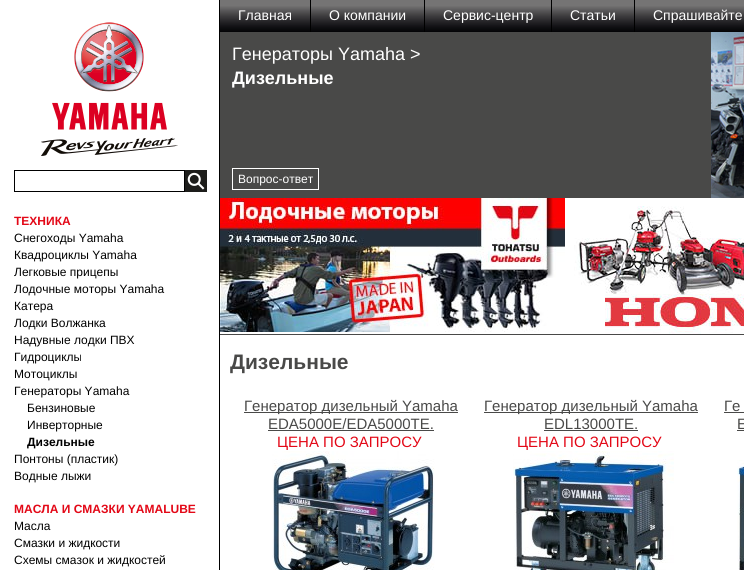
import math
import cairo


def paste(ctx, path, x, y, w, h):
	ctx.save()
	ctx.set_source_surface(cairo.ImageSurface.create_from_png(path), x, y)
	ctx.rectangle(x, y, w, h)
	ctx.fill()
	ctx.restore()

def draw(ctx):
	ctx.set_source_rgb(1, 1, 1)
	ctx.paint()
	paste(ctx, 'media/1.png', 220, 0, 524, 32)
	ctx.select_font_face('Liberation Sans')
	ctx.set_font_size(14)
	ctx.set_source_rgb(1, 1, 1)
	ctx.move_to(238, 20)
	ctx.show_text('Главная')
	ctx.set_source_rgb(0, 0, 0)
	ctx.rectangle(310, 0, 1, 32)
	ctx.fill()
	ctx.set_source_rgb(1, 1, 1)
	ctx.move_to(329, 20)
	ctx.show_text('О компании')
	ctx.set_source_rgb(0, 0, 0)
	ctx.rectangle(424, 0, 1, 32)
	ctx.fill()
	ctx.set_source_rgb(1, 1, 1)
	ctx.move_to(443, 20)
	ctx.show_text('Сервис-центр')
	ctx.set_source_rgb(0, 0, 0)
	ctx.rectangle(551, 0, 1, 32)
	ctx.fill()
	ctx.set_source_rgb(1, 1, 1)
	ctx.move_to(570, 20)
	ctx.show_text('Статьи')
	ctx.set_source_rgb(0, 0, 0)
	ctx.rectangle(634, 0, 1, 32)
	ctx.fill()
	ctx.set_source_rgb(1, 1, 1)
	ctx.move_to(653, 20)
	ctx.show_text('Спрашивайте')
	ctx.set_source_rgb(0, 0, 0)
	ctx.rectangle(219, 0, 1, 570)
	ctx.fill()
	paste(ctx, 'media/2.png', 41, 22, 137, 134)
	ctx.rectangle(14.5, 170.5, 170, 21)
	ctx.set_line_width(1)
	ctx.stroke()
	paste(ctx, 'media/3.png', 185, 170, 22, 22)
	ctx.select_font_face('Liberation Sans', cairo.FONT_SLANT_NORMAL, cairo.FONT_WEIGHT_BOLD)
	ctx.set_font_size(12)
	ctx.set_source_rgb(0.89, 0.035, 0.09)
	ctx.move_to(14, 225)
	ctx.show_text('ТЕХНИКА')
	ctx.select_font_face('Liberation Sans')
	ctx.set_source_rgb(0, 0, 0)
	for x, y, s in [
		(14, 242, 'Снегоходы Yamaha'),
		(14, 259, 'Квадроциклы Yamaha'),
		(14, 276, 'Легковые прицепы'),
		(14, 293, 'Лодочные моторы Yamaha'),
		(14, 310, 'Катера'),
		(14, 327, 'Лодки Волжанка'),
		(14, 344, 'Надувные лодки ПВХ'),
		(14, 361, 'Гидроциклы'),
		(14, 378, 'Мотоциклы'),
		(14, 395, 'Генераторы Yamaha'),
		(27, 412, 'Бензиновые'),
		(27, 429, 'Инверторные'),
	]:
		ctx.move_to(x, y)
		ctx.show_text(s)
	ctx.select_font_face('Liberation Sans', cairo.FONT_SLANT_NORMAL, cairo.FONT_WEIGHT_BOLD)
	ctx.move_to(27, 446)
	ctx.show_text('Дизельные')
	ctx.select_font_face('Liberation Sans')
	ctx.move_to(14, 463)
	ctx.show_text('Понтоны (пластик)')
	ctx.move_to(14, 480)
	ctx.show_text('Водные лыжи')
	ctx.select_font_face('Liberation Sans', cairo.FONT_SLANT_NORMAL, cairo.FONT_WEIGHT_BOLD)
	ctx.set_source_rgb(0.89, 0.035, 0.09)
	ctx.move_to(14, 513)
	ctx.show_text('МАСЛА И СМАЗКИ YAMALUBE')
	ctx.select_font_face('Liberation Sans')
	ctx.set_source_rgb(0, 0, 0)
	for x, y, s in [
		(14, 530, 'Масла'),
		(14, 547, 'Смазки и жидкости'),
		(14, 564, 'Схемы смазок и жидкостей'),
	]:
		ctx.move_to(x, y)
		ctx.show_text(s)
	ctx.set_source_rgb(0.286, 0.286, 0.282)
	ctx.rectangle(220, 32, 491, 166)
	ctx.fill()
	ctx.set_font_size(18)
	ctx.set_source_rgb(1, 1, 1)
	ctx.move_to(232, 60)
	ctx.show_text('Генераторы Yamaha >')
	ctx.select_font_face('Liberation Sans', cairo.FONT_SLANT_NORMAL, cairo.FONT_WEIGHT_BOLD)
	ctx.move_to(232, 84)
	ctx.show_text('Дизельные')
	ctx.rectangle(232.5, 168.5, 86, 21)
	ctx.stroke()
	ctx.select_font_face('Liberation Sans')
	ctx.set_font_size(12)
	ctx.move_to(238, 183)
	ctx.show_text('Вопрос-ответ')
	paste(ctx, 'media/4.png', 711, 32, 33, 166)
	ctx.set_source_rgb(0.286, 0.286, 0.282)
	ctx.rectangle(220, 334, 524, 1)
	ctx.fill()
	paste(ctx, 'media/5.png', 220, 198, 345, 134)
	paste(ctx, 'media/6.png', 574, 206, 170, 128)
	ctx.select_font_face('Liberation Sans', cairo.FONT_SLANT_NORMAL, cairo.FONT_WEIGHT_BOLD)
	ctx.set_font_size(21)
	ctx.move_to(230, 369)
	ctx.show_text('Дизельные')
	ctx.rectangle(244, 412, 214, 1)
	ctx.fill()
	ctx.select_font_face('Liberation Sans')
	ctx.set_font_size(15)
	ctx.move_to(244, 411)
	ctx.show_text('Генератор дизельный Yamaha')
	ctx.move_to(268, 429)
	ctx.show_text('EDA5000E/EDA5000TE.')
	ctx.rectangle(268, 430, 166, 1)
	ctx.fill()
	ctx.set_source_rgb(0.89, 0.035, 0.09)
	ctx.move_to(277, 447)
	ctx.show_text('ЦЕНА ПО ЗАПРОСУ')
	paste(ctx, 'media/7.png', 272, 451, 163, 119)
	ctx.set_source_rgb(0.286, 0.286, 0.282)
	ctx.rectangle(484, 412, 214, 1)
	ctx.fill()
	ctx.move_to(484, 411)
	ctx.show_text('Генератор дизельный Yamaha')
	ctx.move_to(544, 429)
	ctx.show_text('EDL13000TE.')
	ctx.rectangle(544, 430, 94, 1)
	ctx.fill()
	ctx.set_source_rgb(0.89, 0.035, 0.09)
	ctx.move_to(517, 447)
	ctx.show_text('ЦЕНА ПО ЗАПРОСУ')
	paste(ctx, 'media/8.png', 513, 451, 161, 119)
	ctx.set_source_rgb(0.286, 0.286, 0.282)
	ctx.move_to(724, 411)
	ctx.show_text('Ге')
	ctx.rectangle(724, 412, 20, 1)
	ctx.fill()
	ctx.move_to(737, 429)
	ctx.show_text('E')
	ctx.rectangle(737, 430, 7, 1)
	ctx.fill()
	paste(ctx, 'media/9.png', 737, 460, 7, 110)


surface = cairo.ImageSurface(cairo.FORMAT_RGB24, 744, 570)
ctx = cairo.Context(surface)
options = cairo.FontOptions()
options.set_hint_metrics(cairo.HINT_METRICS_OFF)
options.set_hint_style(cairo.HINT_STYLE_NONE)
ctx.set_font_options(options)
ctx.set_miter_limit(4)
draw(ctx)
surface.write_to_png('image.png')
